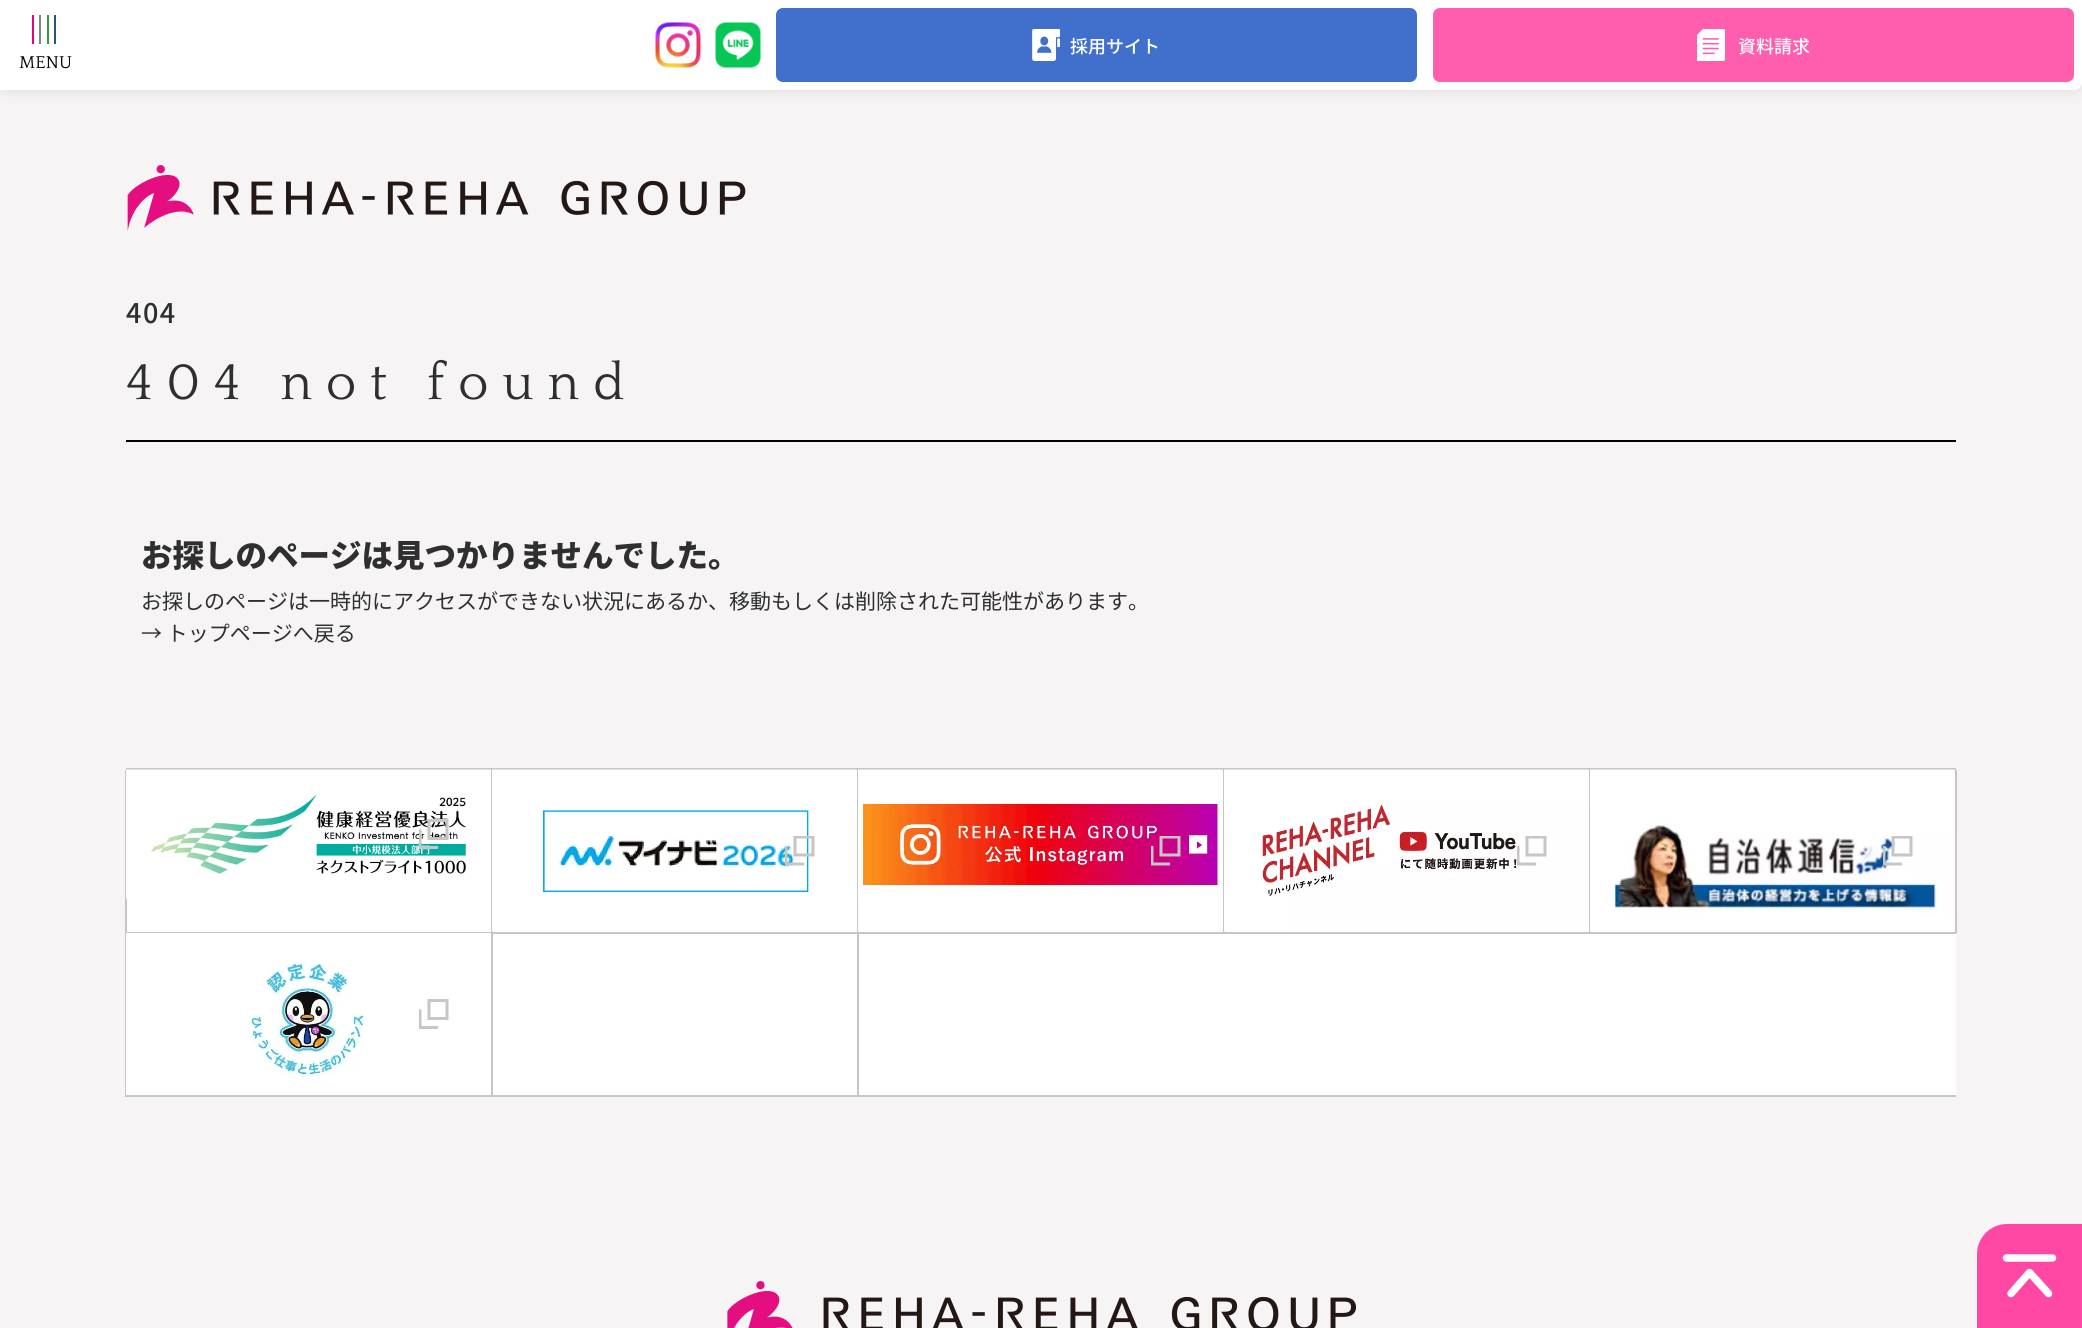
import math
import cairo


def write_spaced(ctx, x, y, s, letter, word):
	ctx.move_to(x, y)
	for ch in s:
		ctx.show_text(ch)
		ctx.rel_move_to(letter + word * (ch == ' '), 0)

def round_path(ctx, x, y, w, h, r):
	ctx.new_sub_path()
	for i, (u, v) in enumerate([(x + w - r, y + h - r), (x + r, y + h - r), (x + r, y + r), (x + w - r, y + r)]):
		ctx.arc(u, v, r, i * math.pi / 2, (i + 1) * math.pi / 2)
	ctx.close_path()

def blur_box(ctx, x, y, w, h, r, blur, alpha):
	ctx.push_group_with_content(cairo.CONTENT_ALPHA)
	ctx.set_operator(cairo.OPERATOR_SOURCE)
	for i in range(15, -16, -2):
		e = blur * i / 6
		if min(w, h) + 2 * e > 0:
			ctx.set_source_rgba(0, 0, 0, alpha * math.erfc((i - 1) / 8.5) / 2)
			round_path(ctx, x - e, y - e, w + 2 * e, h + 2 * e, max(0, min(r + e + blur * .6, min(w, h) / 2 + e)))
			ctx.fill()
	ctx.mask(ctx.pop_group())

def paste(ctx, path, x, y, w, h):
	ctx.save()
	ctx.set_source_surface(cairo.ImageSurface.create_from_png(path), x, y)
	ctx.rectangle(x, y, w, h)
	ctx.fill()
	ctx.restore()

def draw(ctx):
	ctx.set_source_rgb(0.961, 0.957, 0.957)
	ctx.paint()
	ctx.set_source_rgb(0, 0, 0)
	blur_box(ctx, 0, 0, 2082, 90, 8, 7.5, 0.11)
	ctx.set_source_rgb(1, 1, 1)
	ctx.new_path()
	ctx.move_to(0, 0)
	ctx.line_to(2082, 0)
	ctx.line_to(2082, 82)
	ctx.curve_to(2082, 86.5, 2078.5, 90, 2074, 90)
	ctx.line_to(0, 90)
	ctx.close_path()
	ctx.fill()
	paste(ctx, 'media/1.png', 655, 22, 46, 46)
	paste(ctx, 'media/2.png', 715, 22, 46, 46)
	ctx.set_source_rgb(0.251, 0.435, 0.8)
	round_path(ctx, 772, 4, 649, 82, 11)
	ctx.fill_preserve()
	ctx.set_source_rgb(1, 1, 1)
	ctx.set_line_width(8)
	ctx.stroke()
	paste(ctx, 'media/3.png', 1032, 29, 28, 32)
	ctx.select_font_face('Noto Sans JP Medium')
	ctx.set_font_size(18)
	ctx.move_to(1070, 53)
	ctx.show_text('採用サイト')
	ctx.set_source_rgb(1, 0.365, 0.682)
	round_path(ctx, 1429, 4, 649, 82, 11)
	ctx.fill_preserve()
	ctx.set_source_rgb(1, 1, 1)
	ctx.stroke()
	paste(ctx, 'media/4.png', 1697, 29, 28, 32)
	ctx.move_to(1738, 53)
	ctx.show_text('資料請求')
	ctx.set_source_rgb(0.894, 0.008, 0.498)
	ctx.rectangle(32, 15, 2, 29)
	ctx.fill()
	ctx.set_source_rgb(0.522, 0.522, 0.522)
	ctx.rectangle(39, 15, 2, 29)
	ctx.fill()
	ctx.set_source_rgb(0.235, 0.584, 0.251)
	ctx.rectangle(47, 15, 2, 29)
	ctx.fill()
	ctx.set_source_rgb(0.169, 0.333, 0.435)
	ctx.rectangle(54, 15, 2, 29)
	ctx.fill()
	ctx.select_font_face('Quattrocento')
	ctx.set_source_rgb(0, 0, 0)
	ctx.move_to(19, 68)
	ctx.show_text('MENU')
	ctx.rectangle(126, 440, 1830, 2)
	ctx.fill()
	paste(ctx, 'media/5.png', 127, 165, 619, 66)
	ctx.select_font_face('Noto Sans JP Medium')
	ctx.set_font_size(27)
	ctx.set_source_rgb(0.184, 0.184, 0.184)
	write_spaced(ctx, 126, 323, '404', 1.5, 0)
	ctx.select_font_face('Quattrocento')
	ctx.set_font_size(52.5)
	write_spaced(ctx, 126, 399, '404 not found', 13.6, 0)
	ctx.select_font_face('Noto Sans JP Black')
	ctx.set_font_size(31.5)
	ctx.move_to(141, 567)
	ctx.show_text('お探しのページは見つかりませんでした。')
	ctx.select_font_face('Noto Sans JP')
	ctx.set_font_size(21)
	ctx.move_to(141, 609)
	ctx.show_text('お探しのページは一時的にアクセスができない状況にあるか、移動もしくは削除された可能性があります。')
	ctx.move_to(141, 641)
	ctx.show_text('→ トップページへ戻る')
	ctx.set_source_rgb(1, 1, 1)
	ctx.rectangle(127, 770, 1829, 325)
	ctx.fill()
	ctx.set_source_rgb(0.776, 0.776, 0.776)
	ctx.rectangle(126, 768, 1830, 2)
	ctx.rectangle(491, 770, 2, 163)
	ctx.rectangle(125, 932, 367, 2)
	ctx.rectangle(125, 770, 2, 163)
	ctx.fill()
	paste(ctx, 'media/6.png', 126, 769, 365, 130)
	paste(ctx, 'media/7.png', 419, 819, 30, 30)
	ctx.rectangle(857, 770, 2, 163)
	ctx.fill()
	ctx.rectangle(491, 932, 367, 2)
	ctx.fill()
	paste(ctx, 'media/8.png', 492, 769, 365, 163)
	paste(ctx, 'media/9.png', 785, 836, 30, 30)
	ctx.rectangle(1223, 770, 2, 163)
	ctx.fill()
	ctx.rectangle(857, 932, 367, 2)
	ctx.fill()
	paste(ctx, 'media/10.png', 858, 769, 365, 163)
	paste(ctx, 'media/11.png', 1151, 836, 30, 30)
	ctx.rectangle(1589, 770, 2, 163)
	ctx.fill()
	ctx.rectangle(1223, 932, 367, 2)
	ctx.fill()
	paste(ctx, 'media/12.png', 1224, 769, 365, 163)
	paste(ctx, 'media/13.png', 1517, 836, 30, 30)
	ctx.rectangle(1955, 770, 2, 163)
	ctx.fill()
	ctx.rectangle(1589, 932, 367, 2)
	ctx.fill()
	paste(ctx, 'media/14.png', 1590, 769, 365, 163)
	paste(ctx, 'media/15.png', 1883, 836, 30, 30)
	ctx.rectangle(491, 933, 2, 164)
	ctx.rectangle(125, 1095, 367, 2)
	ctx.rectangle(125, 933, 2, 164)
	ctx.fill()
	paste(ctx, 'media/16.png', 126, 933, 365, 162)
	paste(ctx, 'media/17.png', 419, 999, 30, 30)
	ctx.rectangle(493, 1095, 1463, 2)
	ctx.fill()
	ctx.rectangle(857, 933, 2, 164)
	ctx.fill()
	paste(ctx, 'media/18.png', 727, 1281, 629, 47)
	ctx.set_source_rgb(1, 0.282, 0.639)
	ctx.new_path()
	ctx.move_to(2007, 1224)
	ctx.line_to(2082, 1224)
	ctx.line_to(2082, 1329)
	ctx.line_to(1977, 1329)
	ctx.line_to(1977, 1254)
	ctx.curve_to(1977, 1237.5, 1990.5, 1224, 2007, 1224)
	ctx.close_path()
	ctx.fill()
	ctx.new_path()
	ctx.move_to(2006.5, 1258)
	ctx.line_to(2052.5, 1258)
	ctx.move_to(2011, 1293.5)
	ctx.line_to(2029.5, 1272.5)
	ctx.line_to(2048.5, 1293.5)
	ctx.set_source_rgb(1, 1, 1)
	ctx.set_line_width(7.5)
	ctx.set_line_cap(cairo.LINE_CAP_ROUND)
	ctx.set_line_join(cairo.LINE_JOIN_ROUND)
	ctx.stroke()


surface = cairo.ImageSurface(cairo.FORMAT_RGB24, 2082, 1328)
ctx = cairo.Context(surface)
options = cairo.FontOptions()
options.set_hint_metrics(cairo.HINT_METRICS_OFF)
options.set_hint_style(cairo.HINT_STYLE_NONE)
ctx.set_font_options(options)
ctx.set_miter_limit(4)
draw(ctx)
surface.write_to_png('image.png')
